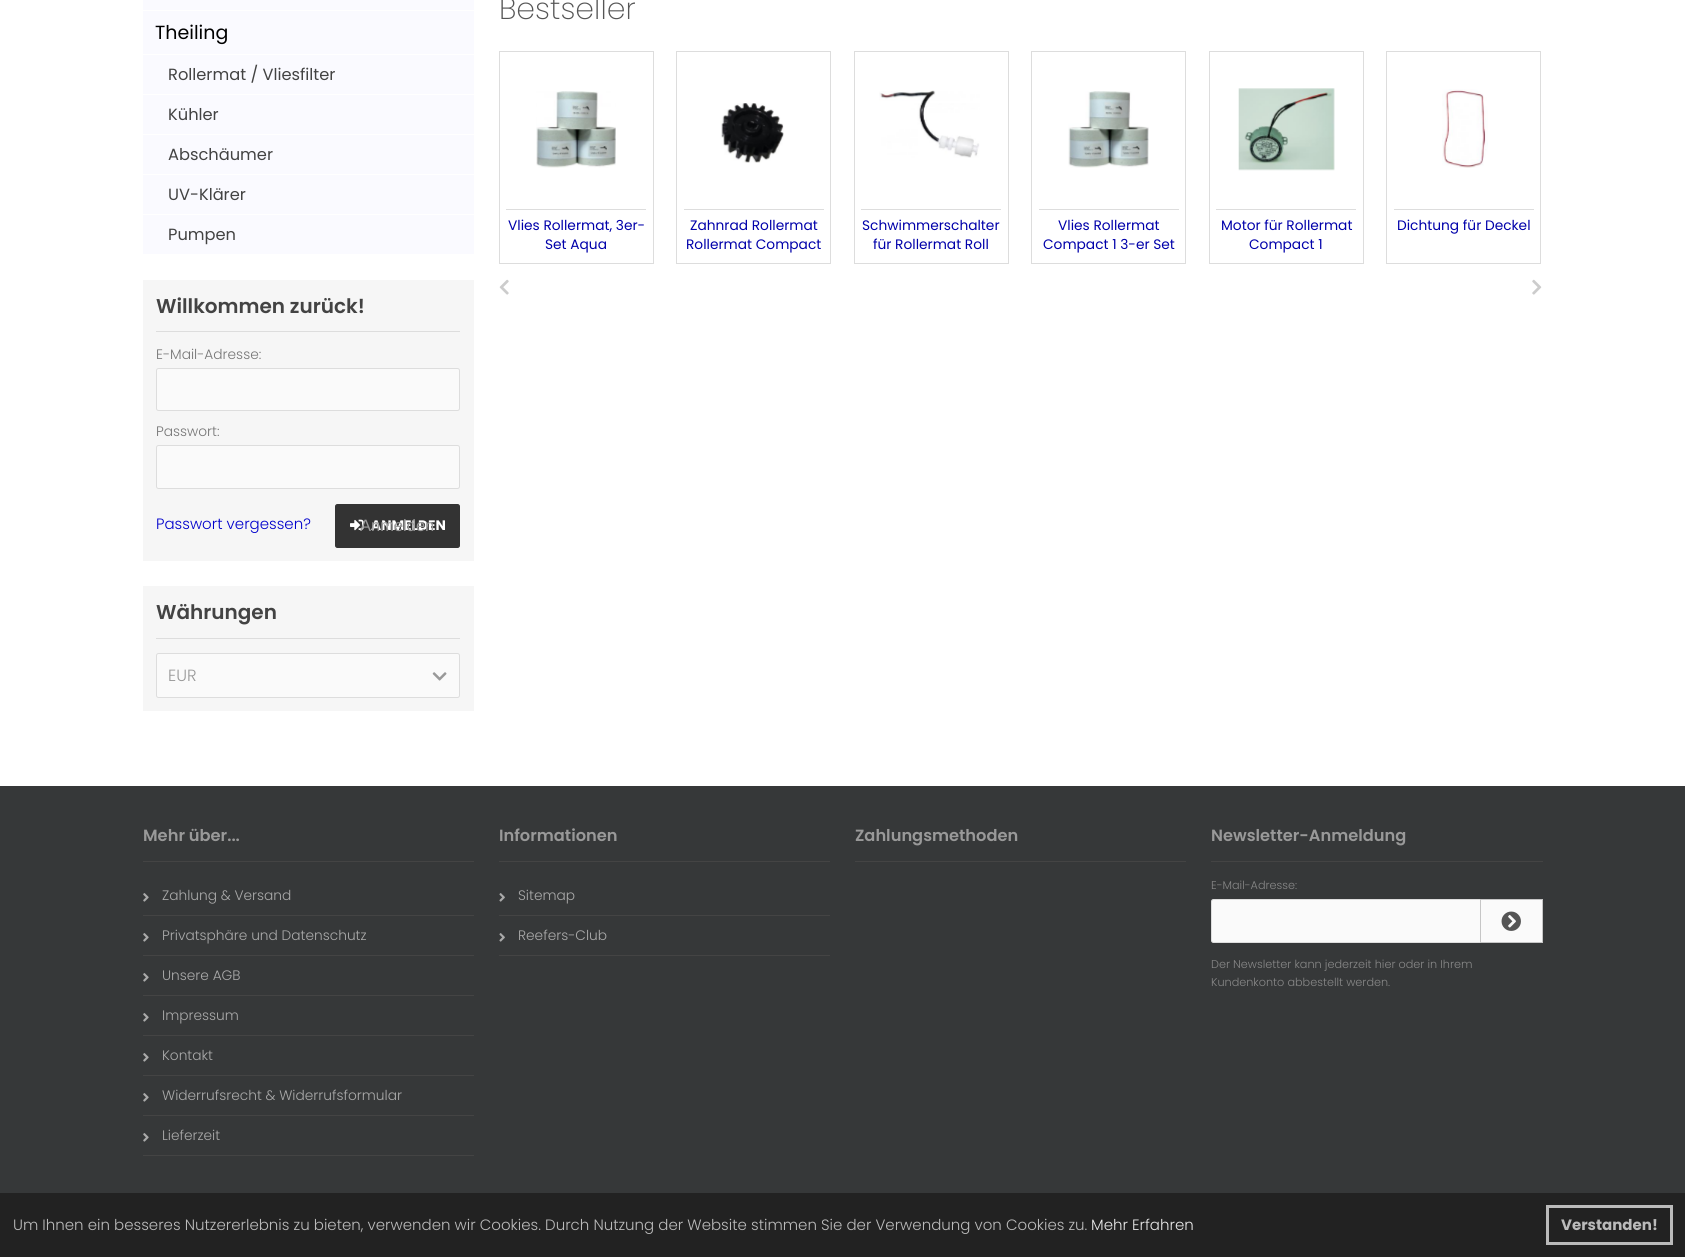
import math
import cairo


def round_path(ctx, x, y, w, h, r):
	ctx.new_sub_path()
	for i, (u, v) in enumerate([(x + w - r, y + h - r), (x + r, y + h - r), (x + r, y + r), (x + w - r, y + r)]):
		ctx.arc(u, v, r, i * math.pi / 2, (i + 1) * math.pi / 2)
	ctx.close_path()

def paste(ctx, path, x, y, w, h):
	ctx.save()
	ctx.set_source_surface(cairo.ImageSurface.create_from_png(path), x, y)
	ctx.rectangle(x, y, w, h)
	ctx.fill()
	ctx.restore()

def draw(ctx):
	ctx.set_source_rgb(1, 1, 1)
	ctx.paint()
	ctx.set_source_rgb(0.98, 0.98, 1)
	ctx.rectangle(143, 0, 331, 10)
	ctx.fill()
	ctx.rectangle(143, 11, 331, 43)
	ctx.fill()
	ctx.select_font_face('Poppins')
	ctx.set_font_size(19)
	ctx.set_source_rgb(0, 0, 0)
	ctx.move_to(155, 39)
	ctx.show_text('Theiling')
	ctx.set_source_rgb(0.98, 0.98, 1)
	ctx.rectangle(143, 55, 331, 39)
	ctx.fill()
	ctx.set_font_size(16.25)
	ctx.set_source_rgb(0.263, 0.263, 0.263)
	ctx.move_to(168, 80)
	ctx.show_text('Rollermat / Vliesfilter')
	ctx.set_source_rgb(0.98, 0.98, 1)
	ctx.rectangle(143, 95, 331, 39)
	ctx.fill()
	ctx.set_source_rgb(0.263, 0.263, 0.263)
	ctx.move_to(168, 120)
	ctx.show_text('Kühler')
	ctx.set_source_rgb(0.98, 0.98, 1)
	ctx.rectangle(143, 135, 331, 39)
	ctx.fill()
	ctx.set_source_rgb(0.263, 0.263, 0.263)
	ctx.move_to(168, 160)
	ctx.show_text('Abschäumer')
	ctx.set_source_rgb(0.98, 0.98, 1)
	ctx.rectangle(143, 175, 331, 39)
	ctx.fill()
	ctx.set_source_rgb(0.263, 0.263, 0.263)
	ctx.move_to(168, 200)
	ctx.show_text('UV-Klärer')
	ctx.set_source_rgb(0.98, 0.98, 1)
	ctx.rectangle(143, 215, 331, 39)
	ctx.fill()
	ctx.set_source_rgb(0.263, 0.263, 0.263)
	ctx.move_to(168, 240)
	ctx.show_text('Pumpen')
	ctx.set_source_rgb(0.961, 0.961, 0.961)
	ctx.rectangle(143, 280, 331, 281)
	ctx.fill()
	ctx.select_font_face('Poppins SemiBold')
	ctx.set_font_size(20)
	ctx.set_source_rgb(0.263, 0.263, 0.263)
	ctx.move_to(156, 313)
	ctx.show_text('Willkommen zurück!')
	ctx.set_source_rgb(0.867, 0.867, 0.867)
	ctx.rectangle(156, 331, 304, 1)
	ctx.fill()
	ctx.select_font_face('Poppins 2 Light')
	ctx.set_font_size(13.75)
	ctx.set_source_rgb(0.463, 0.463, 0.463)
	ctx.move_to(156, 359)
	ctx.show_text('E-Mail-Adresse:')
	ctx.set_source_rgb(0.98, 0.98, 0.98)
	round_path(ctx, 156.5, 368.5, 303, 42, 2)
	ctx.fill_preserve()
	ctx.set_source_rgb(0.867, 0.867, 0.867)
	ctx.set_line_width(1)
	ctx.stroke()
	ctx.set_source_rgb(0.463, 0.463, 0.463)
	ctx.move_to(156, 436)
	ctx.show_text('Passwort:')
	ctx.set_source_rgb(0.98, 0.98, 0.98)
	round_path(ctx, 156.5, 445.5, 303, 43, 2)
	ctx.fill_preserve()
	ctx.set_source_rgb(0.867, 0.867, 0.867)
	ctx.stroke()
	ctx.set_font_size(15)
	ctx.set_source_rgb(0, 0, 0.8)
	ctx.move_to(156, 529)
	ctx.show_text('Passwort vergessen?')
	ctx.set_source_rgb(0.2, 0.2, 0.2)
	round_path(ctx, 335.5, 504.5, 124, 43, 2)
	ctx.fill_preserve()
	ctx.stroke()
	paste(ctx, 'media/1.png', 350, 519, 14, 12)
	ctx.select_font_face('Poppins', cairo.FONT_SLANT_NORMAL, cairo.FONT_WEIGHT_BOLD)
	ctx.set_font_size(13.75)
	ctx.set_source_rgb(1, 1, 1)
	ctx.move_to(371, 530)
	ctx.show_text('ANMELDEN')
	ctx.select_font_face('Liberation Sans')
	ctx.set_font_size(16.5)
	ctx.set_source_rgb(0.6, 0.6, 0.6)
	ctx.move_to(360, 531)
	ctx.show_text('Anmelden')
	ctx.set_source_rgb(0.961, 0.961, 0.961)
	ctx.rectangle(143, 586, 331, 125)
	ctx.fill()
	ctx.select_font_face('Poppins SemiBold')
	ctx.set_font_size(20)
	ctx.set_source_rgb(0.263, 0.263, 0.263)
	ctx.move_to(156, 619)
	ctx.show_text('Währungen')
	ctx.set_source_rgb(0.867, 0.867, 0.867)
	ctx.rectangle(156, 638, 304, 1)
	ctx.fill()
	ctx.set_source_rgb(0.98, 0.98, 0.98)
	round_path(ctx, 156.5, 653.5, 303, 44, 2)
	ctx.fill_preserve()
	ctx.set_source_rgb(0.867, 0.867, 0.867)
	ctx.stroke()
	ctx.select_font_face('Poppins 2 Light')
	ctx.set_font_size(16.25)
	ctx.set_source_rgb(0.6, 0.6, 0.6)
	ctx.move_to(168, 681)
	ctx.show_text('EUR')
	paste(ctx, 'media/2.png', 432, 672, 15, 9)
	ctx.select_font_face('Poppins Light')
	ctx.set_font_size(30)
	ctx.set_source_rgb(0.333, 0.333, 0.333)
	ctx.move_to(499, 19)
	ctx.show_text('Bestseller')
	ctx.rectangle(499.5, 51.5, 154, 212)
	ctx.set_source_rgb(0.867, 0.867, 0.867)
	ctx.stroke()
	paste(ctx, 'media/3.png', 536, 91, 80, 77)
	ctx.rectangle(506, 209, 140, 1)
	ctx.fill()
	ctx.select_font_face('Poppins')
	ctx.set_font_size(13.75)
	ctx.set_source_rgb(0, 0, 0.667)
	ctx.move_to(508, 230)
	ctx.show_text('Vlies Rollermat, 3er-')
	ctx.move_to(545, 249)
	ctx.show_text('Set Aqua')
	ctx.rectangle(676.5, 51.5, 154, 212)
	ctx.set_source_rgb(0.867, 0.867, 0.867)
	ctx.stroke()
	paste(ctx, 'media/4.png', 720, 103, 64, 60)
	ctx.rectangle(684, 209, 140, 1)
	ctx.fill()
	ctx.set_source_rgb(0, 0, 0.667)
	ctx.move_to(690, 230)
	ctx.show_text('Zahnrad Rollermat')
	ctx.move_to(686, 249)
	ctx.show_text('Rollermat Compact')
	ctx.rectangle(854.5, 51.5, 154, 212)
	ctx.set_source_rgb(0.867, 0.867, 0.867)
	ctx.stroke()
	paste(ctx, 'media/5.png', 879, 90, 101, 68)
	ctx.rectangle(861, 209, 140, 1)
	ctx.fill()
	ctx.set_source_rgb(0, 0, 0.667)
	ctx.move_to(862, 230)
	ctx.show_text('Schwimmerschalter')
	ctx.move_to(873, 249)
	ctx.show_text('für Rollermat Roll')
	ctx.rectangle(1031.5, 51.5, 154, 212)
	ctx.set_source_rgb(0.867, 0.867, 0.867)
	ctx.stroke()
	paste(ctx, 'media/6.png', 1068, 91, 81, 77)
	ctx.rectangle(1039, 209, 140, 1)
	ctx.fill()
	ctx.set_source_rgb(0, 0, 0.667)
	ctx.move_to(1058, 230)
	ctx.show_text('Vlies Rollermat')
	ctx.move_to(1043, 249)
	ctx.show_text('Compact 1 3-er Set')
	ctx.rectangle(1209.5, 51.5, 154, 212)
	ctx.set_source_rgb(0.867, 0.867, 0.867)
	ctx.stroke()
	paste(ctx, 'media/7.png', 1238, 88, 97, 83)
	ctx.rectangle(1216, 209, 140, 1)
	ctx.fill()
	ctx.set_source_rgb(0, 0, 0.667)
	ctx.move_to(1221, 230)
	ctx.show_text('Motor für Rollermat')
	ctx.move_to(1249, 249)
	ctx.show_text('Compact 1')
	ctx.rectangle(1386.5, 51.5, 154, 212)
	ctx.set_source_rgb(0.867, 0.867, 0.867)
	ctx.stroke()
	paste(ctx, 'media/8.png', 1442, 89, 46, 79)
	ctx.rectangle(1394, 209, 140, 1)
	ctx.fill()
	ctx.set_source_rgb(0, 0, 0.667)
	ctx.move_to(1397, 230)
	ctx.show_text('Dichtung für Deckel')
	paste(ctx, 'media/9.png', 499, 279, 10, 16)
	paste(ctx, 'media/10.png', 1532, 279, 10, 16)
	ctx.set_source_rgb(0.212, 0.22, 0.224)
	ctx.rectangle(0, 786, 1685, 407)
	ctx.fill()
	ctx.select_font_face('Poppins SemiBold')
	ctx.set_font_size(16.25)
	ctx.set_source_rgb(0.6, 0.6, 0.6)
	ctx.move_to(143, 841)
	ctx.show_text('Mehr über...')
	ctx.set_source_rgb(0.267, 0.267, 0.267)
	ctx.rectangle(143, 861, 331, 1)
	ctx.fill()
	ctx.rectangle(143, 915, 331, 1)
	ctx.fill()
	paste(ctx, 'media/11.png', 143, 893, 6, 9)
	ctx.select_font_face('Poppins 2 Light')
	ctx.set_font_size(13.75)
	ctx.set_source_rgb(0.667, 0.667, 0.667)
	ctx.move_to(162, 900)
	ctx.show_text('Zahlung & Versand')
	ctx.set_source_rgb(0.267, 0.267, 0.267)
	ctx.rectangle(143, 955, 331, 1)
	ctx.fill()
	paste(ctx, 'media/11.png', 143, 933, 6, 9)
	ctx.set_source_rgb(0.667, 0.667, 0.667)
	ctx.move_to(162, 940)
	ctx.show_text('Privatsphäre und Datenschutz')
	ctx.set_source_rgb(0.267, 0.267, 0.267)
	ctx.rectangle(143, 995, 331, 1)
	ctx.fill()
	paste(ctx, 'media/11.png', 143, 973, 6, 9)
	ctx.set_source_rgb(0.667, 0.667, 0.667)
	ctx.move_to(162, 980)
	ctx.show_text('Unsere AGB')
	ctx.set_source_rgb(0.267, 0.267, 0.267)
	ctx.rectangle(143, 1035, 331, 1)
	ctx.fill()
	paste(ctx, 'media/11.png', 143, 1013, 6, 9)
	ctx.set_source_rgb(0.667, 0.667, 0.667)
	ctx.move_to(162, 1020)
	ctx.show_text('Impressum')
	ctx.set_source_rgb(0.267, 0.267, 0.267)
	ctx.rectangle(143, 1075, 331, 1)
	ctx.fill()
	paste(ctx, 'media/11.png', 143, 1053, 6, 9)
	ctx.set_source_rgb(0.667, 0.667, 0.667)
	ctx.move_to(162, 1060)
	ctx.show_text('Kontakt')
	ctx.set_source_rgb(0.267, 0.267, 0.267)
	ctx.rectangle(143, 1115, 331, 1)
	ctx.fill()
	paste(ctx, 'media/11.png', 143, 1093, 6, 9)
	ctx.set_source_rgb(0.667, 0.667, 0.667)
	ctx.move_to(162, 1100)
	ctx.show_text('Widerrufsrecht & Widerrufsformular')
	ctx.set_source_rgb(0.267, 0.267, 0.267)
	ctx.rectangle(143, 1155, 331, 1)
	ctx.fill()
	paste(ctx, 'media/11.png', 143, 1133, 6, 9)
	ctx.set_source_rgb(0.667, 0.667, 0.667)
	ctx.move_to(162, 1140)
	ctx.show_text('Lieferzeit')
	ctx.select_font_face('Poppins SemiBold')
	ctx.set_font_size(16.25)
	ctx.set_source_rgb(0.6, 0.6, 0.6)
	ctx.move_to(499, 841)
	ctx.show_text('Informationen')
	ctx.set_source_rgb(0.267, 0.267, 0.267)
	ctx.rectangle(499, 861, 331, 1)
	ctx.fill()
	ctx.rectangle(499, 915, 331, 1)
	ctx.fill()
	paste(ctx, 'media/12.png', 499, 893, 6, 9)
	ctx.select_font_face('Poppins 2 Light')
	ctx.set_font_size(13.75)
	ctx.set_source_rgb(0.667, 0.667, 0.667)
	ctx.move_to(518, 900)
	ctx.show_text('Sitemap')
	ctx.set_source_rgb(0.267, 0.267, 0.267)
	ctx.rectangle(499, 955, 331, 1)
	ctx.fill()
	paste(ctx, 'media/12.png', 499, 933, 6, 9)
	ctx.set_source_rgb(0.667, 0.667, 0.667)
	ctx.move_to(518, 940)
	ctx.show_text('Reefers-Club')
	ctx.select_font_face('Poppins SemiBold')
	ctx.set_font_size(16.25)
	ctx.set_source_rgb(0.6, 0.6, 0.6)
	ctx.move_to(855, 841)
	ctx.show_text('Zahlungsmethoden')
	ctx.set_source_rgb(0.267, 0.267, 0.267)
	ctx.rectangle(855, 861, 331, 1)
	ctx.fill()
	ctx.set_source_rgb(0.6, 0.6, 0.6)
	ctx.move_to(1211, 841)
	ctx.show_text('Newsletter-Anmeldung')
	ctx.set_source_rgb(0.267, 0.267, 0.267)
	ctx.rectangle(1211, 861, 332, 1)
	ctx.fill()
	ctx.select_font_face('Poppins 2 Light')
	ctx.set_font_size(11.25)
	ctx.set_source_rgb(0.533, 0.533, 0.533)
	ctx.move_to(1211, 889)
	ctx.show_text('E-Mail-Adresse:')
	ctx.set_source_rgb(0.98, 0.98, 0.98)
	round_path(ctx, 1211.5, 899.5, 331, 43, 2)
	ctx.fill_preserve()
	ctx.set_source_rgb(0.867, 0.867, 0.867)
	ctx.stroke()
	ctx.set_source_rgb(0.98, 0.98, 0.98)
	ctx.rectangle(1541, 900, 1, 42)
	ctx.fill()
	ctx.rectangle(1480.5, 899.5, 62, 43)
	ctx.set_source_rgb(0.776, 0.776, 0.776)
	ctx.stroke()
	paste(ctx, 'media/13.png', 1501, 911, 20, 20)
	ctx.set_source_rgb(0.533, 0.533, 0.533)
	ctx.move_to(1211, 968)
	ctx.show_text('Der Newsletter kann jederzeit hier oder in Ihrem')
	ctx.move_to(1211, 986)
	ctx.show_text('Kundenkonto abbestellt werden.')
	ctx.set_source_rgb(0.133, 0.133, 0.133)
	ctx.rectangle(0, 1193, 1685, 64)
	ctx.fill()
	ctx.set_font_size(15)
	ctx.set_source_rgb(0.733, 0.733, 0.733)
	ctx.move_to(13, 1230)
	ctx.show_text('Um Ihnen ein besseres Nutzererlebnis zu bieten, verwenden wir Cookies. Durch Nutzung der Website stimmen Sie der Verwendung von Cookies zu.')
	ctx.set_source_rgb(0.914, 0.914, 0.914)
	ctx.move_to(1091, 1230)
	ctx.show_text('Mehr Erfahren')
	ctx.rectangle(1547.5, 1206.5, 124, 37)
	ctx.set_source_rgb(0.733, 0.733, 0.733)
	ctx.set_line_width(3)
	ctx.stroke()
	ctx.select_font_face('Poppins', cairo.FONT_SLANT_NORMAL, cairo.FONT_WEIGHT_BOLD)
	ctx.move_to(1561, 1230)
	ctx.show_text('Verstanden!')


surface = cairo.ImageSurface(cairo.FORMAT_RGB24, 1685, 1257)
ctx = cairo.Context(surface)
options = cairo.FontOptions()
options.set_hint_metrics(cairo.HINT_METRICS_OFF)
options.set_hint_style(cairo.HINT_STYLE_NONE)
ctx.set_font_options(options)
ctx.set_miter_limit(4)
draw(ctx)
surface.write_to_png('image.png')
